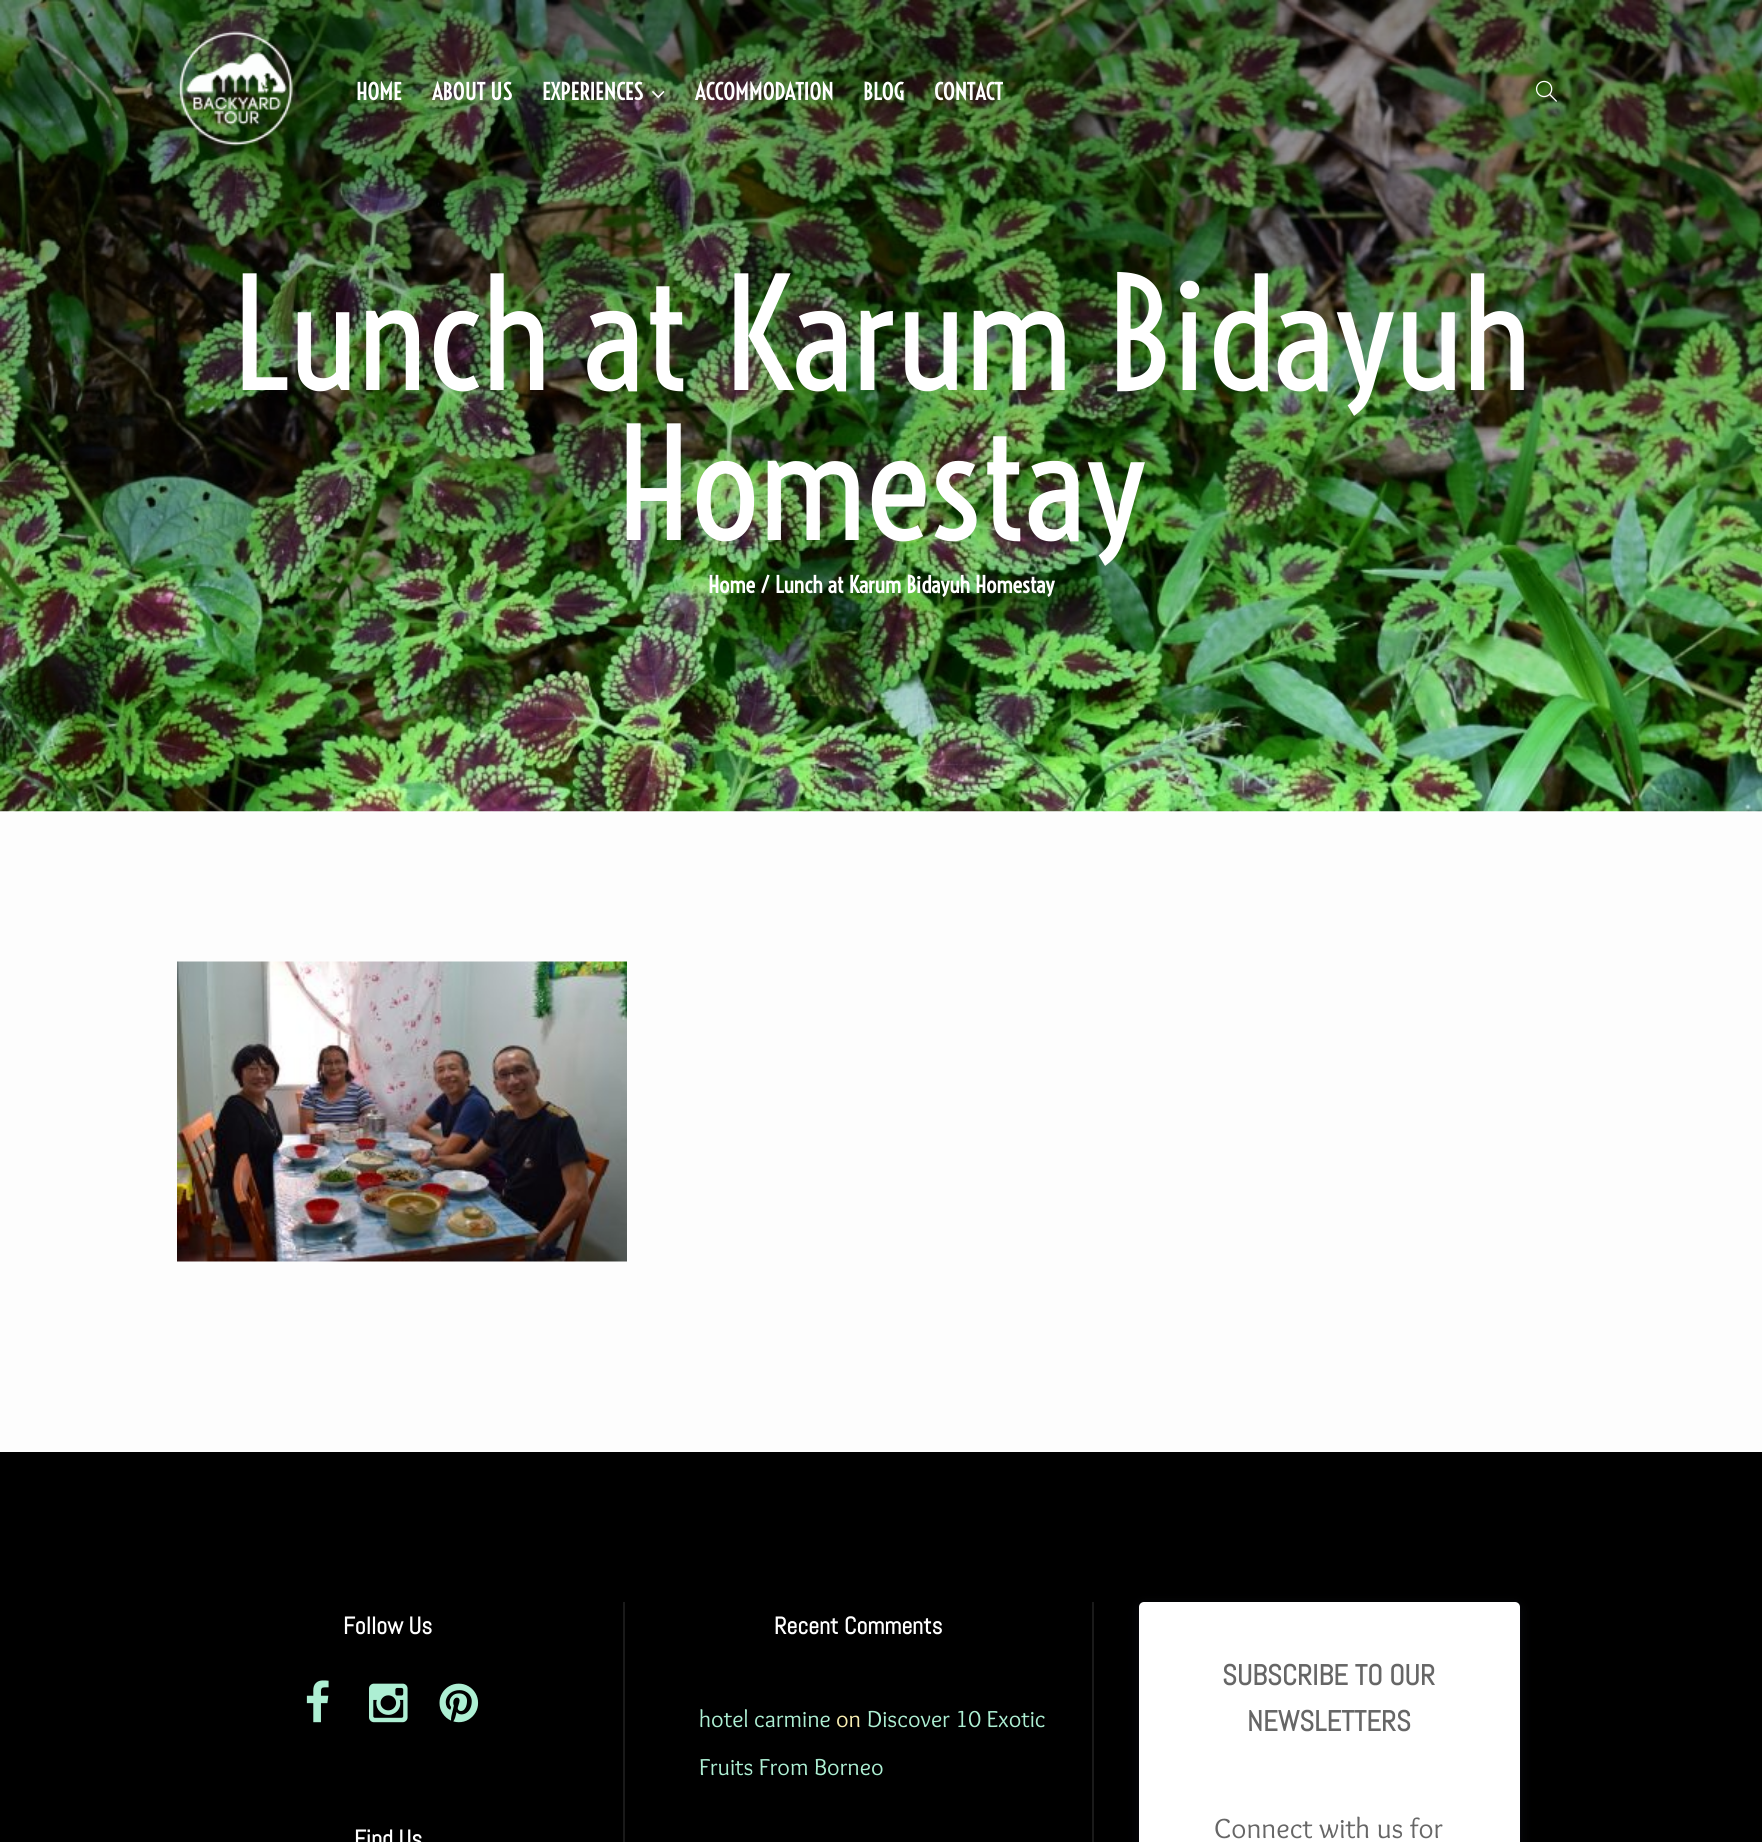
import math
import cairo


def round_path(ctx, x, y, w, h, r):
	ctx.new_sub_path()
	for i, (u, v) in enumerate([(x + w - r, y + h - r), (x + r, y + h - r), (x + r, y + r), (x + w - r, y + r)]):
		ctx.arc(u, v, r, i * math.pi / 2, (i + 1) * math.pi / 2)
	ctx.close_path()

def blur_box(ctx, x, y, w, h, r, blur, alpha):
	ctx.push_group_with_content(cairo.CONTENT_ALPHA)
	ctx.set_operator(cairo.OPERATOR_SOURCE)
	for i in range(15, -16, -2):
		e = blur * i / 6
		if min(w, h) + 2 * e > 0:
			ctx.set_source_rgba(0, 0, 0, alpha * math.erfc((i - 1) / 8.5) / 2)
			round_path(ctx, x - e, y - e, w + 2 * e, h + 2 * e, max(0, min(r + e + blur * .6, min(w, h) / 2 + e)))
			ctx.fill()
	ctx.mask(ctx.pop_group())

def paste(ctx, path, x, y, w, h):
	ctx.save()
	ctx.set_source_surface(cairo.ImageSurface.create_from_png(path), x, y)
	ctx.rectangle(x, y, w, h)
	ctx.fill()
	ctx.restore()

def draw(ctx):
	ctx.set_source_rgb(0.992, 0.992, 0.992)
	ctx.paint()
	paste(ctx, 'media/1.png', 0, 0, 1762, 812)
	gradient = cairo.LinearGradient(881, 0, 881, 812)
	gradient.add_color_stop_rgba(0, 0, 0, 0, 0.4)
	gradient.add_color_stop_rgba(1, 0, 0, 0, 0)
	ctx.set_source(gradient)
	ctx.rectangle(0, 0, 1762, 768)
	ctx.fill()
	paste(ctx, 'media/2.png', 178, 31, 115, 115)
	ctx.select_font_face('Voltaire', cairo.FONT_SLANT_NORMAL, cairo.FONT_WEIGHT_BOLD)
	ctx.set_font_size(22.5)
	ctx.set_source_rgb(1, 1, 1)
	for x, y, s in [
		(356, 100, 'HOME'),
		(432, 100, 'ABOUT US'),
		(542, 100, 'EXPERIENCES'),
	]:
		ctx.move_to(x, y)
		ctx.show_text(s)
	paste(ctx, 'media/3.png', 652, 91, 13, 8)
	for x, y, s in [
		(695, 100, 'ACCOMMODATION'),
		(863, 100, 'BLOG'),
		(934, 100, 'CONTACT'),
	]:
		ctx.move_to(x, y)
		ctx.show_text(s)
	paste(ctx, 'media/4.png', 1535, 80, 22, 22)
	ctx.select_font_face('Voltaire')
	ctx.set_font_size(150)
	ctx.move_to(232, 390)
	ctx.show_text('Lunch at Karum Bidayuh')
	ctx.move_to(616, 540)
	ctx.show_text('Homestay')
	ctx.select_font_face('Voltaire', cairo.FONT_SLANT_NORMAL, cairo.FONT_WEIGHT_BOLD)
	ctx.set_font_size(22.5)
	ctx.move_to(708, 593)
	ctx.show_text('Home / Lunch at Karum Bidayuh Homestay')
	paste(ctx, 'media/5.png', 177, 961, 450, 301)
	ctx.set_source_rgb(0, 0, 0)
	ctx.rectangle(0, 1452, 1762, 390)
	ctx.fill()
	ctx.set_source_rgb(0.102, 0.102, 0.102)
	ctx.rectangle(623, 1602, 2, 240)
	ctx.fill()
	ctx.select_font_face('Abel', cairo.FONT_SLANT_NORMAL, cairo.FONT_WEIGHT_BOLD)
	ctx.set_font_size(24)
	ctx.set_source_rgb(1, 1, 1)
	ctx.move_to(343, 1634)
	ctx.show_text('Follow Us')
	paste(ctx, 'media/6.png', 306, 1680, 23, 43)
	paste(ctx, 'media/7.png', 369, 1683, 39, 40)
	paste(ctx, 'media/8.png', 439, 1683, 40, 40)
	ctx.move_to(354, 1847)
	ctx.show_text('Find Us')
	ctx.set_source_rgb(0.102, 0.102, 0.102)
	ctx.rectangle(1092, 1602, 2, 240)
	ctx.fill()
	ctx.set_source_rgb(1, 1, 1)
	ctx.move_to(774, 1634)
	ctx.show_text('Recent Comments')
	ctx.select_font_face('Overlock')
	ctx.set_source_rgb(0.678, 0.937, 0.827)
	ctx.move_to(699, 1727)
	ctx.show_text('hotel carmine')
	ctx.set_source_rgb(0.969, 0.929, 0.69)
	ctx.move_to(836, 1727)
	ctx.show_text('on')
	ctx.set_source_rgb(0.678, 0.937, 0.827)
	ctx.move_to(867, 1727)
	ctx.show_text('Discover 10 Exotic')
	ctx.move_to(699, 1775)
	ctx.show_text('Fruits From Borneo')
	ctx.set_source_rgb(0.196, 0.216, 0.353)
	blur_box(ctx, 1139, 1605, 381, 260, 5, 6, 0.2)
	round_path(ctx, 1139.4, 1602.4, 381.2, 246.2, 5.6)
	ctx.set_source_rgba(0, 0.078, 0.157, 0.1)
	ctx.set_line_width(0.8)
	ctx.stroke()
	ctx.set_source_rgb(1, 1, 1)
	round_path(ctx, 1139, 1602, 381, 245, 5)
	ctx.fill()
	ctx.select_font_face('Abel', cairo.FONT_SLANT_NORMAL, cairo.FONT_WEIGHT_BOLD)
	ctx.set_font_size(28.75)
	ctx.set_source_rgb(0.4, 0.4, 0.4)
	ctx.move_to(1222, 1685)
	ctx.show_text('SUBSCRIBE TO OUR')
	ctx.move_to(1247, 1731)
	ctx.show_text('NEWSLETTERS')
	ctx.select_font_face('Overlock')
	ctx.move_to(1214, 1838)
	ctx.show_text('Connect with us for')


surface = cairo.ImageSurface(cairo.FORMAT_RGB24, 1762, 1842)
ctx = cairo.Context(surface)
options = cairo.FontOptions()
options.set_hint_metrics(cairo.HINT_METRICS_OFF)
options.set_hint_style(cairo.HINT_STYLE_NONE)
ctx.set_font_options(options)
ctx.set_miter_limit(4)
draw(ctx)
surface.write_to_png('image.png')
